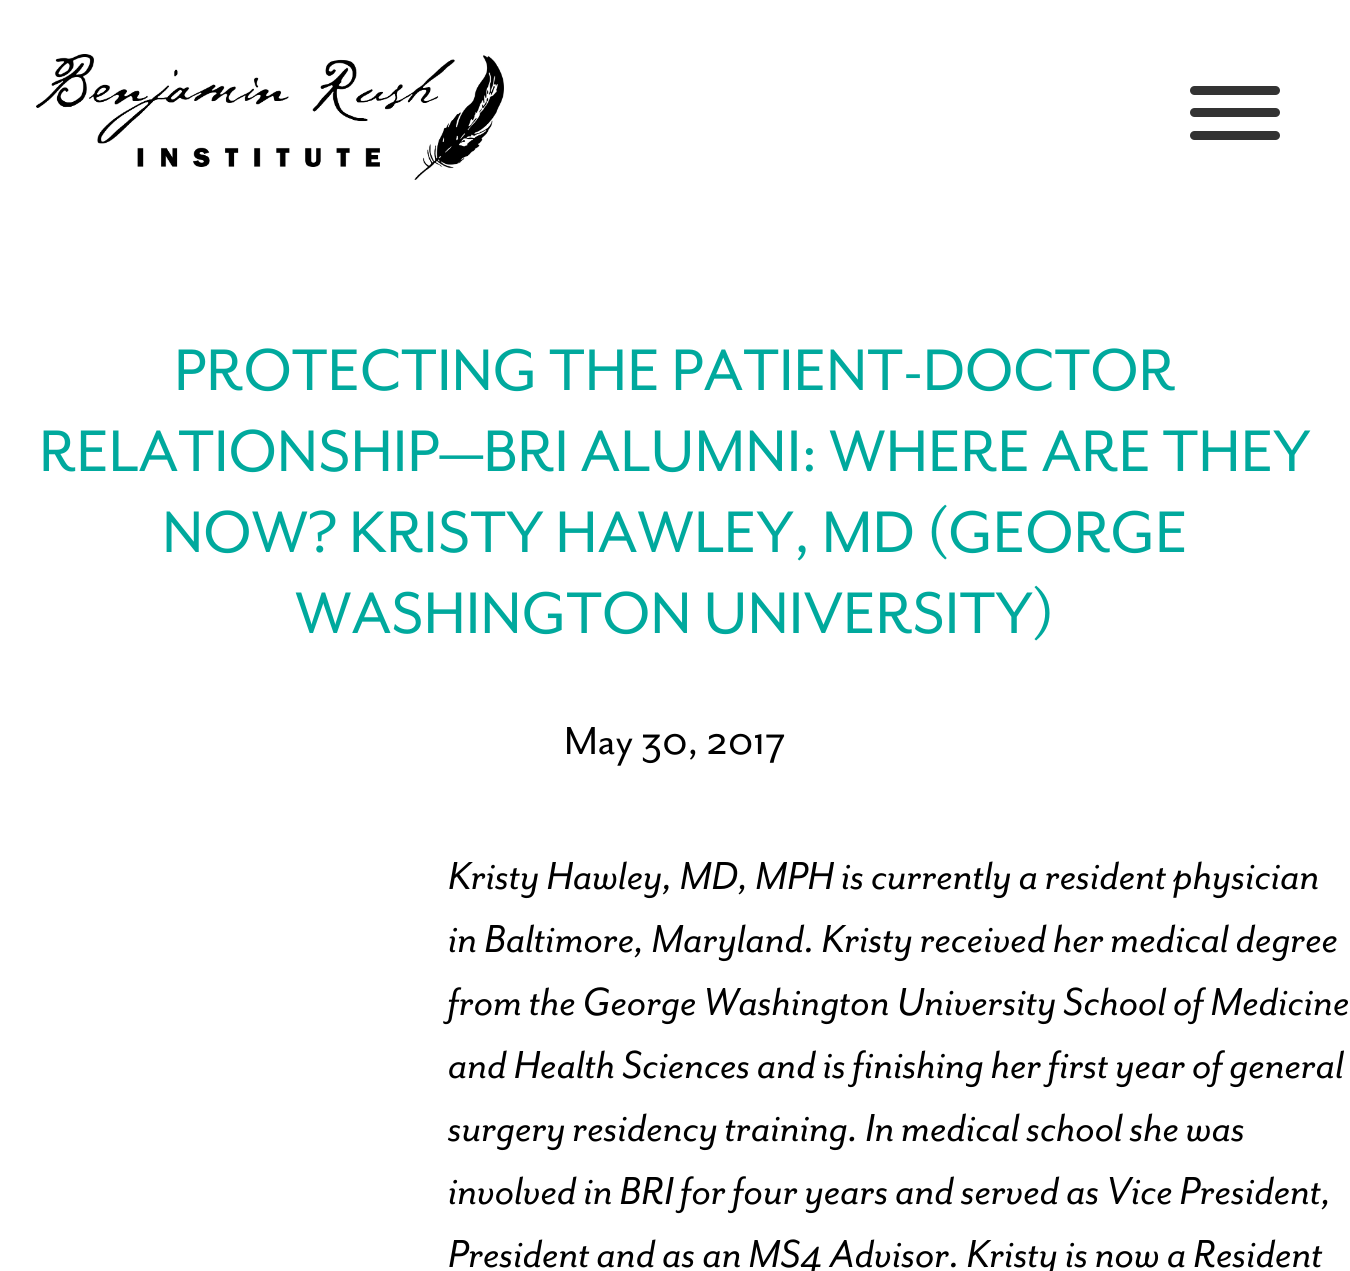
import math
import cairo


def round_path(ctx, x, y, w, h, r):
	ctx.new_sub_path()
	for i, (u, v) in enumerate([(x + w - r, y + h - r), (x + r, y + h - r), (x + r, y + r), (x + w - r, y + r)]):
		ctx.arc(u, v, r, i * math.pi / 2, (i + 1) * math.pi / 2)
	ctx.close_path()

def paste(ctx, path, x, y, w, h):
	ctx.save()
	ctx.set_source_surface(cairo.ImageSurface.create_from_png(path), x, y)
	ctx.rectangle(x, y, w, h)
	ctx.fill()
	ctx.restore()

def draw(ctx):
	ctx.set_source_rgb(1, 1, 1)
	ctx.paint()
	paste(ctx, 'media/1.png', 36, 54, 468, 126)
	ctx.set_source_rgb(0.2, 0.2, 0.2)
	round_path(ctx, 1190, 108, 90, 9, 4.5)
	ctx.fill()
	round_path(ctx, 1190, 86, 90, 9, 4.5)
	ctx.fill()
	round_path(ctx, 1190, 131, 90, 9, 4.5)
	ctx.fill()
	ctx.select_font_face('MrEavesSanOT')
	ctx.set_font_size(67.5)
	ctx.set_source_rgb(0, 0.663, 0.616)
	for x, y, s in [
		(174, 390, 'PROTECTING THE PATIENT-DOCTOR'),
		(39, 471, 'RELATIONSHIP—BRI ALUMNI: WHERE ARE THEY'),
		(162, 552, 'NOW? KRISTY HAWLEY, MD (GEORGE'),
		(295, 633, 'WASHINGTON UNIVERSITY)'),
	]:
		ctx.move_to(x, y)
		ctx.show_text(s)
	ctx.set_font_size(45)
	ctx.set_source_rgb(0, 0, 0)
	ctx.move_to(564, 754)
	ctx.show_text('May 30, 2017')
	ctx.select_font_face('MrEavesSanOT', cairo.FONT_SLANT_ITALIC)
	for x, y, s in [
		(448, 889, 'Kristy Hawley, MD, MPH is currently a resident physician'),
		(448, 952, 'in Baltimore, Maryland. Kristy received her medical degree'),
		(448, 1015, 'from the George Washington University School of Medicine'),
		(448, 1078, 'and Health Sciences and is finishing her first year of general'),
		(448, 1141, 'surgery residency training. In medical school she was'),
		(448, 1204, 'involved in BRI for four years and served as Vice President,'),
		(448, 1267, 'President and as an MS4 Advisor. Kristy is now a Resident'),
	]:
		ctx.move_to(x, y)
		ctx.show_text(s)


surface = cairo.ImageSurface(cairo.FORMAT_RGB24, 1350, 1271)
ctx = cairo.Context(surface)
options = cairo.FontOptions()
options.set_hint_metrics(cairo.HINT_METRICS_OFF)
options.set_hint_style(cairo.HINT_STYLE_NONE)
ctx.set_font_options(options)
ctx.set_miter_limit(4)
draw(ctx)
surface.write_to_png('image.png')
